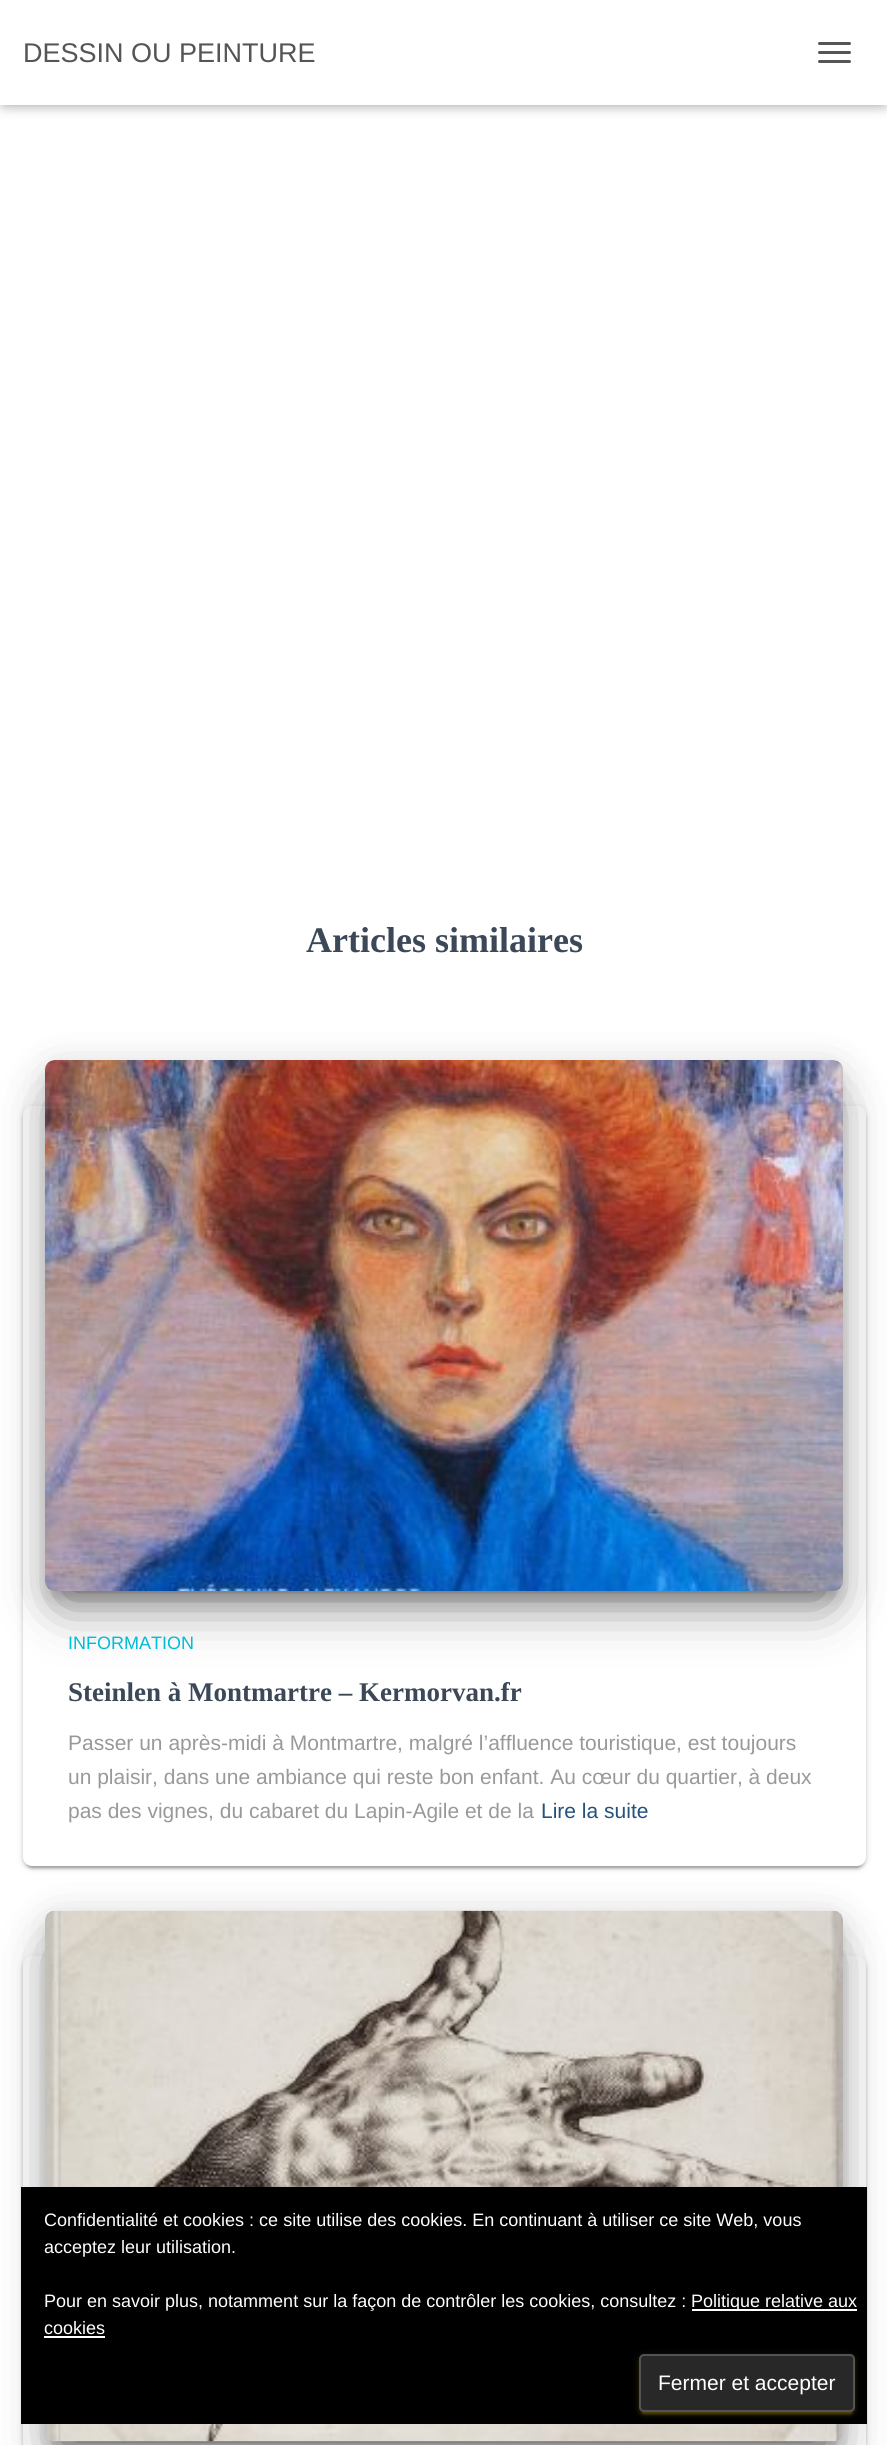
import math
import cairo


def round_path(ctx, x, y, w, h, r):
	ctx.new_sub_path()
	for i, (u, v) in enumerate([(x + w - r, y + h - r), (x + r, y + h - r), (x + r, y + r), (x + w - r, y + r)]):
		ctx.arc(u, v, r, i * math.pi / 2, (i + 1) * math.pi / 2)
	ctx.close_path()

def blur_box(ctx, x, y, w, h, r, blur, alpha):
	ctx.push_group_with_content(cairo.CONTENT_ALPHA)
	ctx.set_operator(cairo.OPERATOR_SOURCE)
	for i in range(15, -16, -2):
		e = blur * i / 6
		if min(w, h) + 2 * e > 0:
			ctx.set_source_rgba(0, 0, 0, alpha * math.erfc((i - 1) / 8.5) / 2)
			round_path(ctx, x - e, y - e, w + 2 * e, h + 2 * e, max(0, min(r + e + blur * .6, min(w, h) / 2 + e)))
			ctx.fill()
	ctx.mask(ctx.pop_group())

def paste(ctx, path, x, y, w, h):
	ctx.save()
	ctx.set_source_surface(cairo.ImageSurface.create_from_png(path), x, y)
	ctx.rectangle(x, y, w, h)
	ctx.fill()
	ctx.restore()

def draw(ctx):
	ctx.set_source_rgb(1, 1, 1)
	ctx.paint()
	ctx.set_source_rgb(0, 0, 0)
	blur_box(ctx, 3, 9, 882, 99, 0, 4, 0.1)
	blur_box(ctx, 0, 2, 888, 105, 0, 7.5, 0.12)
	blur_box(ctx, 9, 11, 870, 87, 0, 7.5, 0.42)
	ctx.set_source_rgb(1, 1, 1)
	ctx.rectangle(0, 0, 887, 105)
	ctx.fill()
	ctx.select_font_face('Liberation Sans')
	ctx.set_font_size(27)
	ctx.set_source_rgb(0.333, 0.333, 0.333)
	ctx.move_to(23, 62)
	ctx.show_text('DESSIN OU PEINTURE')
	round_path(ctx, 818, 42, 33, 3, 1.5)
	ctx.fill()
	round_path(ctx, 818, 51, 33, 3, 1.5)
	ctx.fill()
	round_path(ctx, 818, 60, 33, 3, 1.5)
	ctx.fill()
	ctx.select_font_face('Liberation Serif', cairo.FONT_SLANT_NORMAL, cairo.FONT_WEIGHT_BOLD)
	ctx.set_font_size(36)
	ctx.set_source_rgb(0.235, 0.282, 0.345)
	ctx.move_to(306, 952)
	ctx.show_text('Articles similaires')
	ctx.set_source_rgb(0, 0, 0)
	blur_box(ctx, 23, 1107, 843, 761, 9, 4, 0.12)
	blur_box(ctx, 26, 1113, 837, 755, 6, 1, 0.2)
	blur_box(ctx, 23, 1109, 843, 760, 9, 1.5, 0.14)
	ctx.set_source_rgb(1, 1, 1)
	round_path(ctx, 23, 1106, 843, 760, 9)
	ctx.fill()
	ctx.set_source_rgb(0, 0, 0)
	blur_box(ctx, 53, 1080, 783, 516, 1.5, 7.5, 0.2)
	blur_box(ctx, 45, 1067, 798, 531, 9, 19, 0.12)
	blur_box(ctx, 63, 1103, 762, 495, 0, 28.5, 0.56)
	paste(ctx, 'media/1.png', 45, 1060, 798, 531)
	ctx.select_font_face('Liberation Sans')
	ctx.set_font_size(18)
	ctx.set_source_rgb(0, 0.737, 0.831)
	ctx.move_to(68, 1649)
	ctx.show_text('INFORMATION')
	ctx.select_font_face('Liberation Serif', cairo.FONT_SLANT_NORMAL, cairo.FONT_WEIGHT_BOLD)
	ctx.set_font_size(27)
	ctx.set_source_rgb(0.235, 0.282, 0.345)
	ctx.move_to(68, 1701)
	ctx.show_text('Steinlen à Montmartre – Kermorvan.fr')
	ctx.select_font_face('Liberation Sans')
	ctx.set_font_size(21)
	ctx.set_source_rgb(0.6, 0.6, 0.6)
	for x, y, s in [
		(68, 1750, 'Passer un après-midi à Montmartre, malgré l’affluence touristique, est toujours'),
		(68, 1784, 'un plaisir, dans une ambiance qui reste bon enfant. Au cœur du quartier, à deux'),
		(68, 1818, 'pas des vignes, du cabaret du Lapin-Agile et de la'),
	]:
		ctx.move_to(x, y)
		ctx.show_text(s)
	ctx.set_source_rgb(0.137, 0.322, 0.486)
	ctx.move_to(541, 1818)
	ctx.show_text('Lire la suite')
	ctx.set_source_rgb(0, 0, 0)
	blur_box(ctx, 23, 1958, 843, 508, 9, 4, 0.12)
	blur_box(ctx, 23, 1959, 843, 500, 9, 1.5, 0.14)
	ctx.set_source_rgb(1, 1, 1)
	round_path(ctx, 23, 1956, 843, 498, 9)
	ctx.fill()
	ctx.set_source_rgb(0, 0, 0)
	blur_box(ctx, 53, 1931, 783, 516, 1.5, 7.5, 0.2)
	blur_box(ctx, 45, 1917, 798, 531, 9, 19, 0.12)
	blur_box(ctx, 63, 1953, 762, 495, 0, 28.5, 0.56)
	paste(ctx, 'media/2.png', 45, 1910, 798, 532)
	ctx.set_source_rgb(0, 0, 0)
	ctx.rectangle(21, 2187, 846, 237)
	ctx.fill()
	ctx.set_font_size(18)
	ctx.set_source_rgb(1, 1, 1)
	for x, y, s in [
		(44, 2226, 'Confidentialité et cookies : ce site utilise des cookies. En continuant à utiliser ce site Web, vous'),
		(44, 2253, 'acceptez leur utilisation.'),
		(44, 2307, 'Pour en savoir plus, notamment sur la façon de contrôler les cookies, consultez :'),
	]:
		ctx.move_to(x, y)
		ctx.show_text(s)
	ctx.rectangle(692, 2309, 165, 2)
	ctx.fill()
	ctx.move_to(691, 2307)
	ctx.show_text('Politique relative aux')
	ctx.move_to(44, 2334)
	ctx.show_text('cookies')
	ctx.rectangle(44, 2336, 61, 2)
	ctx.fill()
	ctx.set_source_rgb(0.847, 0.706, 0.133)
	blur_box(ctx, 639, 2355, 216, 59, 5, 4, 0.12)
	blur_box(ctx, 642, 2361, 210, 53, 1.5, 1, 0.2)
	blur_box(ctx, 639, 2357, 216, 58, 5, 1.5, 0.14)
	ctx.set_source_rgb(0.157, 0.157, 0.157)
	round_path(ctx, 640, 2355, 214, 56, 4)
	ctx.fill_preserve()
	ctx.set_source_rgb(0.325, 0.325, 0.325)
	ctx.stroke()
	ctx.set_font_size(21)
	ctx.set_source_rgb(1, 1, 1)
	ctx.move_to(658, 2390)
	ctx.show_text('Fermer et accepter')


surface = cairo.ImageSurface(cairo.FORMAT_RGB24, 887, 2445)
ctx = cairo.Context(surface)
options = cairo.FontOptions()
options.set_hint_metrics(cairo.HINT_METRICS_OFF)
options.set_hint_style(cairo.HINT_STYLE_NONE)
ctx.set_font_options(options)
ctx.set_miter_limit(4)
draw(ctx)
surface.write_to_png('image.png')
